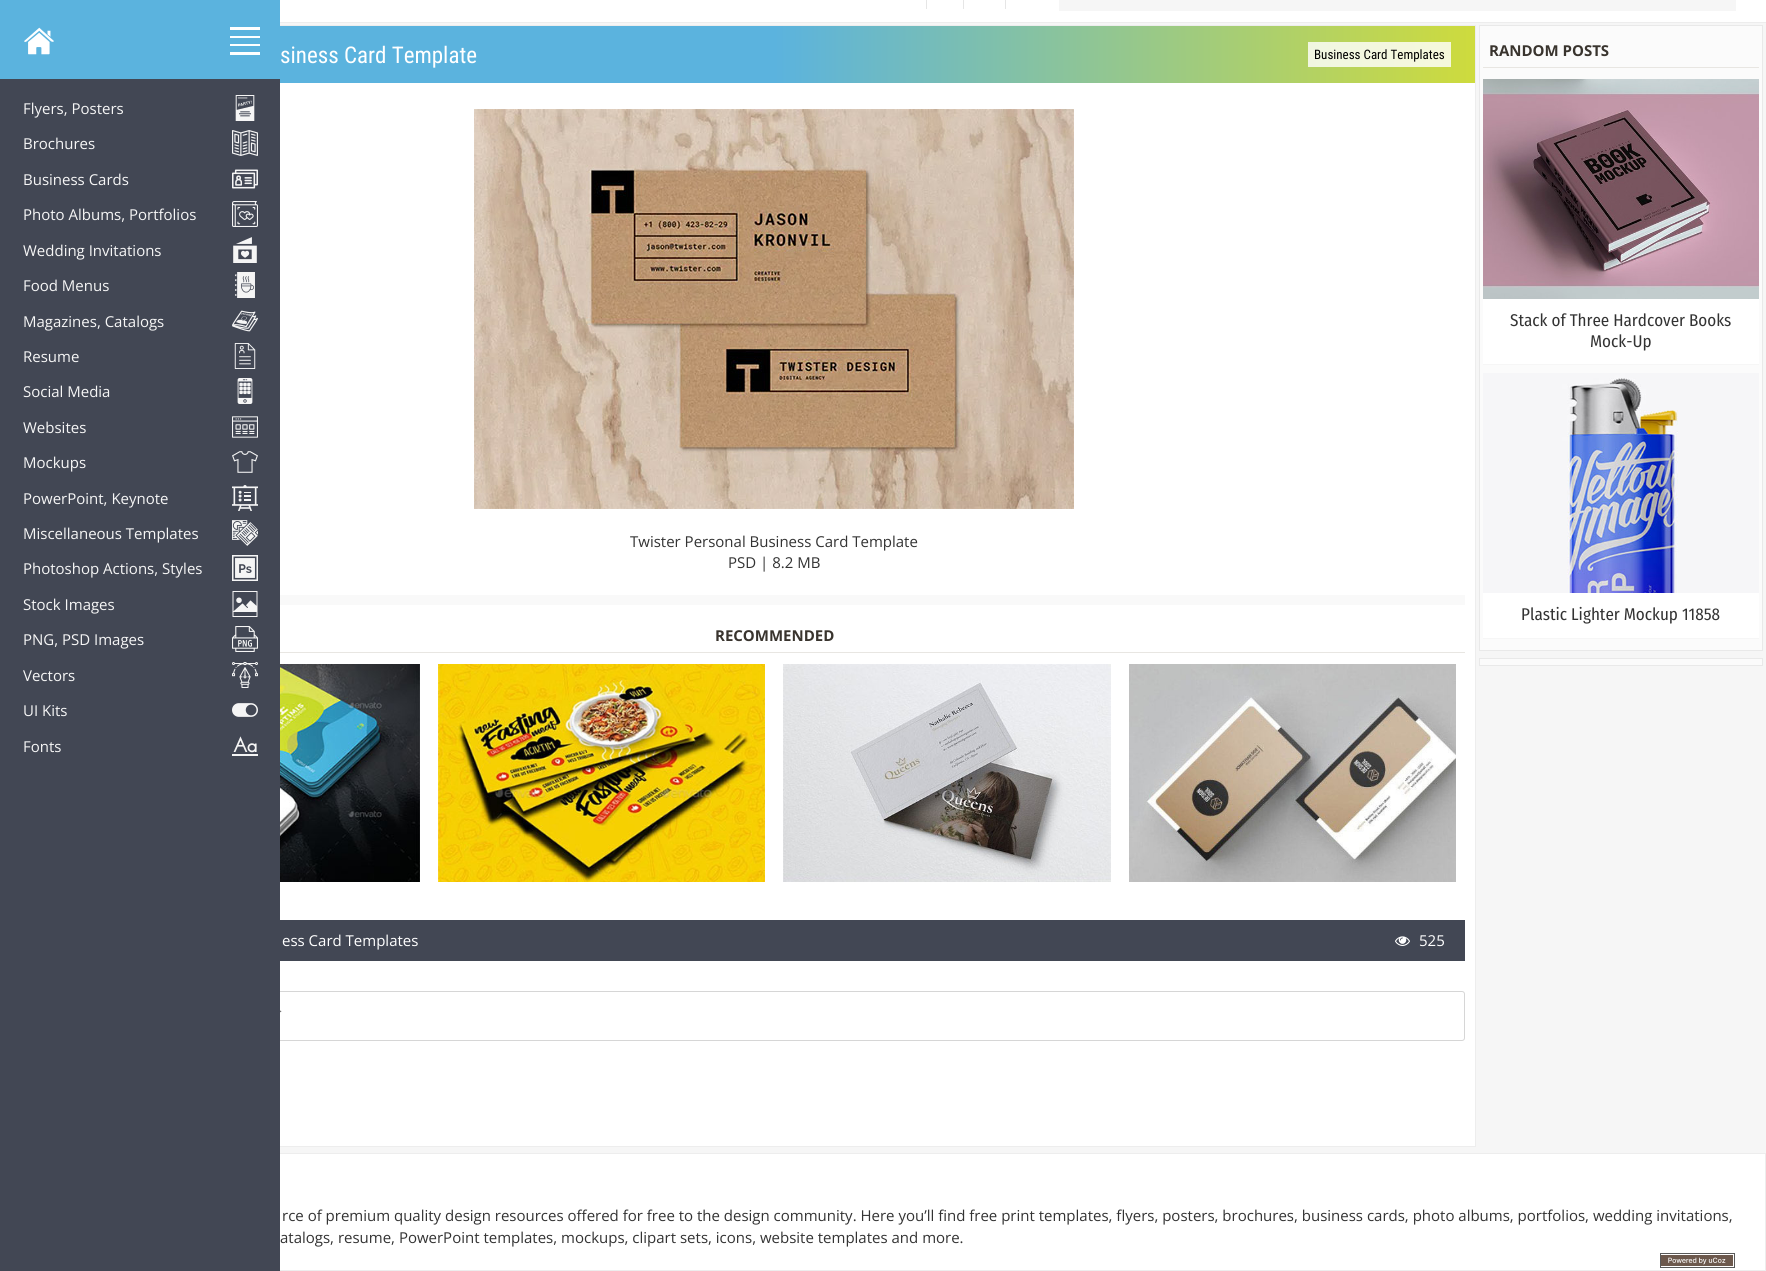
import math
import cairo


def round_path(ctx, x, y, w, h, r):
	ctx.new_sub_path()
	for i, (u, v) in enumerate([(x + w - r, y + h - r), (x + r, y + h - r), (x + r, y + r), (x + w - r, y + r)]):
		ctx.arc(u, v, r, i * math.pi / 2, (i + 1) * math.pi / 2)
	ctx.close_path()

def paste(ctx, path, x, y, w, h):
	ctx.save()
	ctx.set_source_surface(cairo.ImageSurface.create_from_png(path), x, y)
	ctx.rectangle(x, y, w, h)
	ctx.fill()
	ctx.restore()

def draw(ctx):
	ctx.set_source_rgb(0.961, 0.961, 0.961)
	ctx.paint()
	ctx.set_source_rgb(1, 1, 1)
	ctx.rectangle(280, 83, 1195, 1063)
	ctx.fill()
	ctx.rectangle(73.5, 25.5, 1402, 1121)
	ctx.set_source_rgb(0.929, 0.929, 0.929)
	ctx.set_line_width(1)
	ctx.stroke()
	round_path(ctx, 144.5, 991.5, 1320, 49, 2.5)
	ctx.set_source_rgb(0.839, 0.839, 0.839)
	ctx.stroke()
	ctx.select_font_face('Open Sans')
	ctx.set_font_size(12)
	ctx.set_source_rgb(0.459, 0.459, 0.459)
	ctx.move_to(279, 1012)
	ctx.show_text('.')
	ctx.set_source_rgb(1, 1, 1)
	ctx.rectangle(280, 1154, 1485, 116)
	ctx.fill()
	ctx.rectangle(70.5, 1153.5, 1695, 117)
	ctx.set_source_rgb(0.929, 0.929, 0.929)
	ctx.stroke()
	ctx.set_source_rgb(0.259, 0.278, 0.329)
	ctx.rectangle(0, 79, 280, 1192)
	ctx.fill()
	ctx.set_source_rgb(0.357, 0.702, 0.871)
	ctx.rectangle(0, 0, 280, 79)
	ctx.fill()
	paste(ctx, 'media/1.png', 24, 27, 30, 28)
	ctx.set_source_rgb(1, 1, 1)
	ctx.rectangle(230, 27, 30, 3)
	ctx.rectangle(230, 36, 30, 2)
	ctx.rectangle(230, 44, 30, 2)
	ctx.rectangle(230, 52, 30, 3)
	ctx.fill()
	ctx.set_font_size(15)
	ctx.set_source_rgb(0.961, 0.961, 0.961)
	ctx.move_to(23, 114)
	ctx.show_text('Flyers, Posters')
	paste(ctx, 'media/2.png', 235, 95, 20, 26)
	ctx.move_to(23, 149)
	ctx.show_text('Brochures')
	paste(ctx, 'media/3.png', 232, 130, 26, 26)
	ctx.move_to(23, 185)
	ctx.show_text('Business Cards')
	paste(ctx, 'media/4.png', 232, 169, 26, 20)
	ctx.move_to(23, 220)
	ctx.show_text('Photo Albums, Portfolios')
	paste(ctx, 'media/5.png', 232, 201, 26, 26)
	ctx.move_to(23, 256)
	ctx.show_text('Wedding Invitations')
	paste(ctx, 'media/6.png', 233, 237, 24, 26)
	ctx.move_to(23, 291)
	ctx.show_text('Food Menus')
	paste(ctx, 'media/7.png', 235, 272, 20, 26)
	ctx.move_to(23, 327)
	ctx.show_text('Magazines, Catalogs')
	paste(ctx, 'media/8.png', 232, 310, 26, 22)
	ctx.move_to(23, 362)
	ctx.show_text('Resume')
	paste(ctx, 'media/9.png', 234, 343, 22, 26)
	ctx.move_to(23, 397)
	ctx.show_text('Social Media')
	paste(ctx, 'media/10.png', 237, 378, 16, 26)
	ctx.move_to(23, 433)
	ctx.show_text('Websites')
	paste(ctx, 'media/11.png', 232, 416, 26, 22)
	ctx.move_to(23, 468)
	ctx.show_text('Mockups')
	paste(ctx, 'media/12.png', 232, 451, 26, 22)
	ctx.move_to(23, 504)
	ctx.show_text('PowerPoint, Keynote')
	paste(ctx, 'media/13.png', 232, 485, 26, 26)
	ctx.move_to(23, 539)
	ctx.show_text('Miscellaneous Templates')
	paste(ctx, 'media/14.png', 232, 520, 26, 26)
	ctx.move_to(23, 574)
	ctx.show_text('Photoshop Actions, Styles')
	paste(ctx, 'media/15.png', 232, 555, 26, 26)
	ctx.move_to(23, 610)
	ctx.show_text('Stock Images')
	paste(ctx, 'media/16.png', 232, 591, 26, 26)
	ctx.move_to(23, 645)
	ctx.show_text('PNG, PSD Images')
	paste(ctx, 'media/17.png', 232, 626, 26, 26)
	ctx.move_to(23, 681)
	ctx.show_text('Vectors')
	paste(ctx, 'media/18.png', 232, 662, 26, 26)
	ctx.move_to(23, 716)
	ctx.show_text('UI Kits')
	paste(ctx, 'media/19.png', 232, 703, 26, 14)
	ctx.move_to(23, 752)
	ctx.show_text('Fonts')
	paste(ctx, 'media/20.png', 232, 736, 26, 20)
	ctx.set_source_rgb(1, 1, 1)
	ctx.rectangle(280, 0, 1486, 22)
	ctx.fill()
	ctx.set_source_rgb(0.929, 0.929, 0.929)
	ctx.rectangle(280, 22, 1486, 1)
	ctx.fill()
	ctx.set_source_rgb(0.902, 0.902, 0.902)
	ctx.rectangle(926, 0, 1, 9)
	ctx.rectangle(963, 0, 1, 9)
	ctx.rectangle(1005, 0, 1, 9)
	ctx.fill()
	ctx.set_source_rgb(0.961, 0.961, 0.961)
	ctx.rectangle(1059, 0, 677, 11)
	ctx.fill()
	gradient = cairo.LinearGradient(74, -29, 1475, -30)
	gradient.add_color_stop_rgba(0.5, 0.357, 0.702, 0.871, 1)
	gradient.add_color_stop_rgba(1, 0.808, 0.859, 0.239, 1)
	ctx.set_source(gradient)
	ctx.rectangle(280, 26, 1195, 57)
	ctx.fill()
	gradient = cairo.LinearGradient(74, -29, 1475, -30)
	gradient.add_color_stop_rgba(0.5, 0.878, 0.945, 0.976, 1)
	gradient.add_color_stop_rgba(1, 0.965, 0.973, 0.855, 1)
	ctx.set_source(gradient)
	ctx.rectangle(1308, 42, 143, 25)
	ctx.fill()
	ctx.select_font_face('Roboto Condensed')
	ctx.set_font_size(23)
	ctx.set_source_rgb(1, 1, 1)
	ctx.move_to(280, 63)
	ctx.show_text('siness Card Template')
	ctx.set_font_size(13)
	ctx.set_source_rgb(0, 0, 0)
	ctx.move_to(1314, 59)
	ctx.show_text('Business Card Templates')
	paste(ctx, 'media/21.png', 474, 109, 600, 400)
	ctx.select_font_face('Open Sans')
	ctx.set_font_size(15)
	ctx.set_source_rgb(0.2, 0.2, 0.2)
	ctx.move_to(630, 547)
	ctx.show_text('Twister Personal Business Card Template')
	ctx.move_to(728, 568)
	ctx.show_text('PSD | 8.2 MB')
	ctx.set_source_rgb(0.976, 0.976, 0.976)
	ctx.rectangle(280, 595, 1185, 10)
	ctx.fill()
	ctx.set_source_rgb(0.91, 0.902, 0.886)
	ctx.rectangle(280, 652, 1185, 1)
	ctx.fill()
	ctx.select_font_face('Open Sans', cairo.FONT_SLANT_NORMAL, cairo.FONT_WEIGHT_BOLD)
	ctx.set_source_rgb(0.224, 0.204, 0.18)
	ctx.move_to(715, 641)
	ctx.show_text('RECOMMENDED')
	paste(ctx, 'media/22.png', 280, 664, 140, 218)
	paste(ctx, 'media/23.png', 438, 664, 327, 218)
	paste(ctx, 'media/24.png', 783, 664, 328, 218)
	paste(ctx, 'media/25.png', 1129, 664, 327, 218)
	ctx.set_source_rgb(0.259, 0.278, 0.329)
	ctx.rectangle(280, 920, 1185, 41)
	ctx.fill()
	ctx.select_font_face('Open Sans')
	ctx.set_source_rgb(1, 1, 1)
	ctx.move_to(282, 946)
	ctx.show_text('ess Card Templates')
	paste(ctx, 'media/26.png', 1395, 936, 15, 10)
	ctx.move_to(1419, 946)
	ctx.show_text('525')
	ctx.set_source_rgb(0.984, 0.984, 0.984)
	ctx.rectangle(1479.5, 25.5, 283, 625)
	ctx.fill_preserve()
	ctx.set_source_rgb(0.914, 0.914, 0.914)
	ctx.stroke()
	ctx.set_source_rgb(0.91, 0.902, 0.886)
	ctx.rectangle(1483, 67, 276, 1)
	ctx.fill()
	ctx.select_font_face('Open Sans', cairo.FONT_SLANT_NORMAL, cairo.FONT_WEIGHT_BOLD)
	ctx.set_source_rgb(0.224, 0.204, 0.18)
	ctx.move_to(1489, 56)
	ctx.show_text('RANDOM POSTS')
	paste(ctx, 'media/27.png', 1483, 79, 276, 220)
	ctx.set_source_rgb(1, 1, 1)
	ctx.rectangle(1483, 299, 276, 65)
	ctx.fill()
	ctx.set_source_rgb(0.961, 0.961, 0.961)
	ctx.rectangle(1483, 364, 276, 1)
	ctx.fill()
	ctx.select_font_face('Fira Sans Condensed')
	ctx.set_font_size(17)
	ctx.set_source_rgb(0.2, 0.2, 0.2)
	ctx.move_to(1510, 326)
	ctx.show_text('Stack of Three Hardcover Books')
	ctx.move_to(1590, 347)
	ctx.show_text('Mock-Up')
	paste(ctx, 'media/28.png', 1483, 373, 276, 220)
	ctx.set_source_rgb(1, 1, 1)
	ctx.rectangle(1483, 593, 276, 45)
	ctx.fill()
	ctx.set_source_rgb(0.961, 0.961, 0.961)
	ctx.rectangle(1483, 638, 276, 1)
	ctx.fill()
	ctx.set_source_rgb(0.2, 0.2, 0.2)
	ctx.move_to(1521, 620)
	ctx.show_text('Plastic Lighter Mockup 11858')
	ctx.set_source_rgb(0.984, 0.984, 0.984)
	ctx.rectangle(1479.5, 658.5, 283, 7)
	ctx.fill_preserve()
	ctx.set_source_rgb(0.914, 0.914, 0.914)
	ctx.stroke()
	ctx.select_font_face('Open Sans')
	ctx.set_font_size(15)
	ctx.set_source_rgb(0.2, 0.2, 0.2)
	ctx.move_to(282, 1221)
	ctx.show_text('rce of premium quality design resources offered for free to the design community. Here you’ll find free print templates, flyers, posters, brochures, business cards, photo albums, portfolios, wedding invitations,')
	ctx.move_to(280, 1243)
	ctx.show_text('atalogs, resume, PowerPoint templates, mockups, clipart sets, icons, website templates and more.')
	paste(ctx, 'media/29.png', 1660, 1253, 75, 15)


surface = cairo.ImageSurface(cairo.FORMAT_RGB24, 1766, 1271)
ctx = cairo.Context(surface)
options = cairo.FontOptions()
options.set_hint_metrics(cairo.HINT_METRICS_OFF)
options.set_hint_style(cairo.HINT_STYLE_NONE)
ctx.set_font_options(options)
ctx.set_miter_limit(4)
draw(ctx)
surface.write_to_png('image.png')
